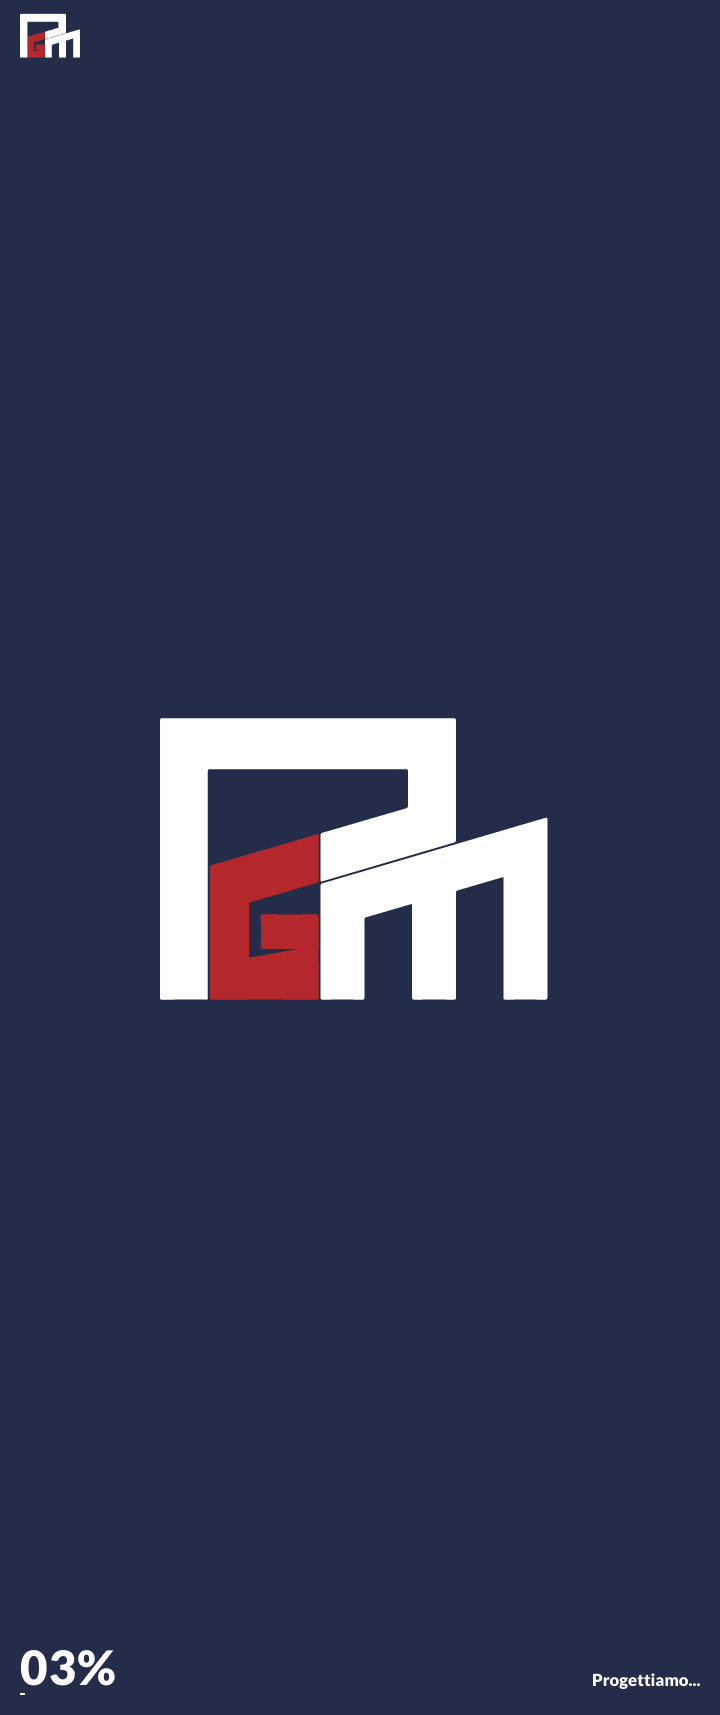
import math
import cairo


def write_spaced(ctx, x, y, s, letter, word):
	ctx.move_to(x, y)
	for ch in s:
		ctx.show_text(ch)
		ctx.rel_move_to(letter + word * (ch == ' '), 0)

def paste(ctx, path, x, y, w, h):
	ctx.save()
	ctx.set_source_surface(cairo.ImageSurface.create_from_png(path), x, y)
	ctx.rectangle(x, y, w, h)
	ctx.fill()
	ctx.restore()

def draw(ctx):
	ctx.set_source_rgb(0.137, 0.176, 0.29)
	ctx.paint()
	paste(ctx, 'media/1.png', 20, 13, 60, 45)
	paste(ctx, 'media/2.png', 160, 718, 388, 282)
	ctx.set_source_rgb(1, 1, 1)
	ctx.rectangle(20, 1693, 5, 2)
	ctx.fill()
	ctx.select_font_face('Lato Black')
	ctx.set_font_size(47.5)
	write_spaced(ctx, 20, 1685, '03%', 1, 0)
	ctx.set_font_size(16.75)
	ctx.move_to(592, 1686)
	ctx.show_text('Progettiamo...')


surface = cairo.ImageSurface(cairo.FORMAT_RGB24, 720, 1715)
ctx = cairo.Context(surface)
options = cairo.FontOptions()
options.set_hint_metrics(cairo.HINT_METRICS_OFF)
options.set_hint_style(cairo.HINT_STYLE_NONE)
ctx.set_font_options(options)
ctx.set_miter_limit(4)
draw(ctx)
surface.write_to_png('image.png')
